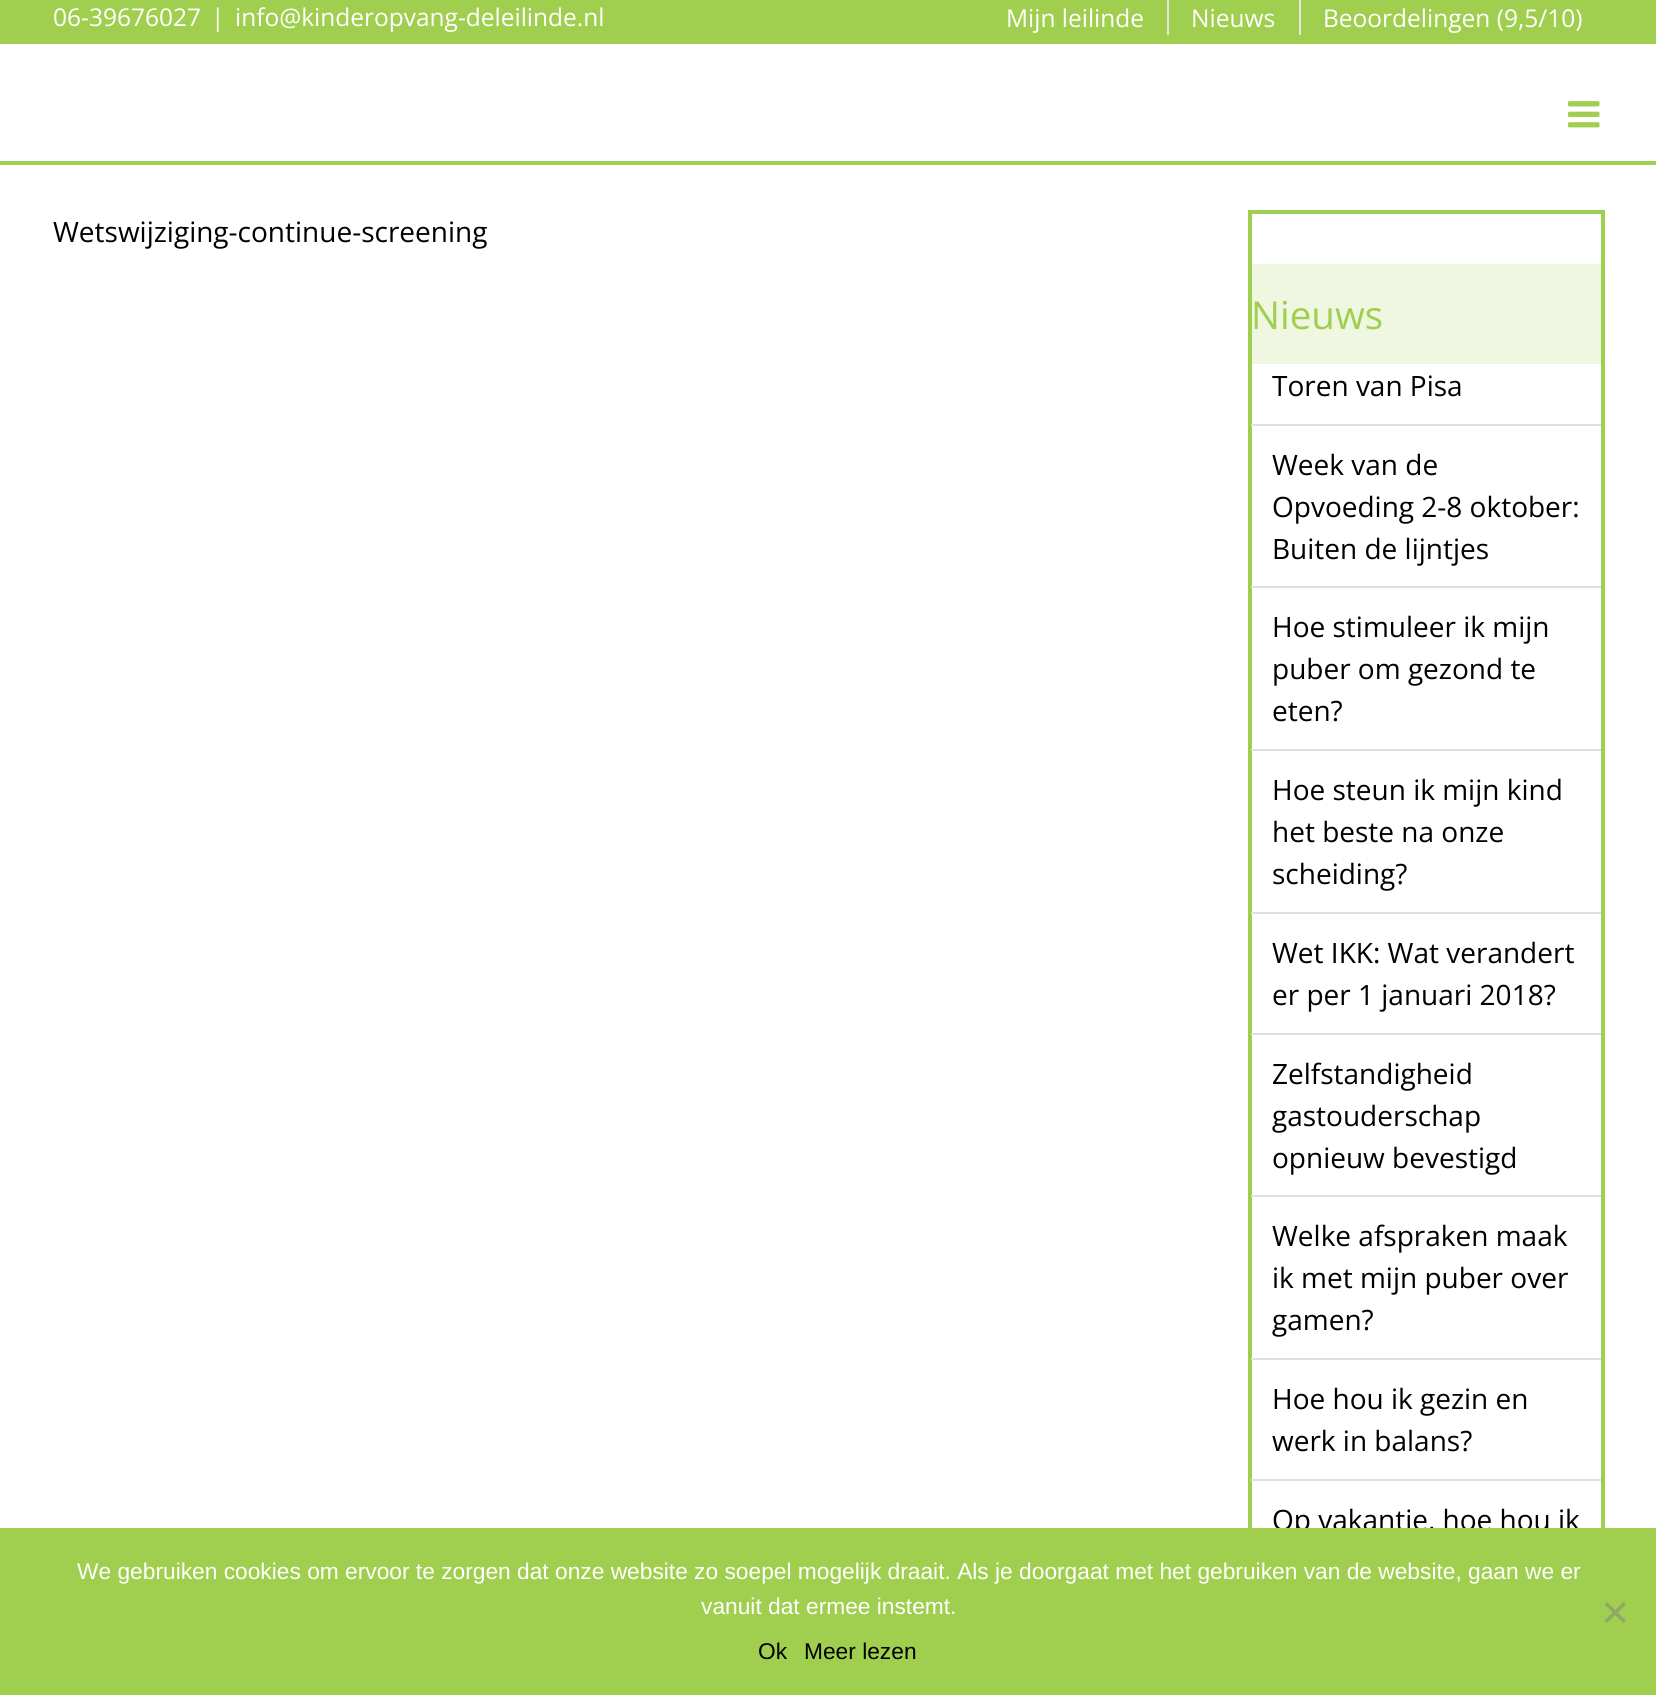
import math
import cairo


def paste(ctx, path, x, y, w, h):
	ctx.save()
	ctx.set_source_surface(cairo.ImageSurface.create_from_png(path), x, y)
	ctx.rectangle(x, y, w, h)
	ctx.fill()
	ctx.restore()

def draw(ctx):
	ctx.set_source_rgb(1, 1, 1)
	ctx.paint()
	ctx.set_source_rgb(0.627, 0.808, 0.306)
	ctx.rectangle(0, 0, 1656, 44)
	ctx.fill()
	ctx.select_font_face('Open Sans')
	ctx.set_font_size(24.5)
	ctx.set_source_rgb(1, 1, 1)
	for x, y, s in [
		(53, 26, '06-39676027'),
		(211, 26, '|'),
		(235, 26, 'info@kinderopvang-deleilinde.nl'),
		(1006, 27, 'Mijn leilinde'),
	]:
		ctx.move_to(x, y)
		ctx.show_text(s)
	ctx.set_source_rgb(0.898, 0.898, 0.898)
	ctx.rectangle(1167, 0, 2, 35)
	ctx.fill()
	ctx.set_source_rgb(1, 1, 1)
	ctx.move_to(1191, 27)
	ctx.show_text('Nieuws')
	ctx.set_source_rgb(0.898, 0.898, 0.898)
	ctx.rectangle(1299, 0, 2, 35)
	ctx.fill()
	ctx.set_source_rgb(1, 1, 1)
	ctx.move_to(1323, 27)
	ctx.show_text('Beoordelingen (9,5/10)')
	ctx.set_source_rgb(0.627, 0.808, 0.306)
	ctx.rectangle(0, 161, 1656, 4)
	ctx.fill()
	paste(ctx, 'media/1.png', 1568, 101, 32, 27)
	ctx.set_font_size(28)
	ctx.set_source_rgb(0, 0, 0)
	ctx.move_to(53, 242)
	ctx.show_text('Wetswijziging-continue-screening')
	ctx.rectangle(1250, 212, 353, 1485)
	ctx.set_source_rgb(0.627, 0.808, 0.306)
	ctx.set_line_width(4)
	ctx.stroke()
	ctx.set_source_rgba(0.627, 0.808, 0.306, 0.17)
	ctx.rectangle(1252, 264, 349, 100)
	ctx.fill()
	ctx.set_font_size(38.5)
	ctx.set_source_rgb(0.627, 0.808, 0.306)
	ctx.move_to(1251, 329)
	ctx.show_text('Nieuws')
	ctx.set_source_rgb(0.878, 0.871, 0.871)
	ctx.rectangle(1251, 424, 350, 2)
	ctx.fill()
	ctx.set_font_size(28)
	ctx.set_source_rgb(0, 0, 0)
	ctx.move_to(1272, 396)
	ctx.show_text('Toren van Pisa')
	ctx.set_source_rgb(0.878, 0.871, 0.871)
	ctx.rectangle(1251, 586, 350, 2)
	ctx.fill()
	ctx.set_source_rgb(0, 0, 0)
	for x, y, s in [
		(1272, 475, 'Week van de'),
		(1272, 517, 'Opvoeding 2-8 oktober:'),
		(1272, 559, 'Buiten de lijntjes'),
	]:
		ctx.move_to(x, y)
		ctx.show_text(s)
	ctx.set_source_rgb(0.878, 0.871, 0.871)
	ctx.rectangle(1251, 749, 350, 2)
	ctx.fill()
	ctx.set_source_rgb(0, 0, 0)
	for x, y, s in [
		(1272, 637, 'Hoe stimuleer ik mijn'),
		(1272, 679, 'puber om gezond te'),
		(1272, 721, 'eten?'),
	]:
		ctx.move_to(x, y)
		ctx.show_text(s)
	ctx.set_source_rgb(0.878, 0.871, 0.871)
	ctx.rectangle(1251, 912, 350, 2)
	ctx.fill()
	ctx.set_source_rgb(0, 0, 0)
	for x, y, s in [
		(1272, 800, 'Hoe steun ik mijn kind'),
		(1272, 842, 'het beste na onze'),
		(1272, 884, 'scheiding?'),
	]:
		ctx.move_to(x, y)
		ctx.show_text(s)
	ctx.set_source_rgb(0.878, 0.871, 0.871)
	ctx.rectangle(1251, 1033, 350, 2)
	ctx.fill()
	ctx.set_source_rgb(0, 0, 0)
	ctx.move_to(1272, 963)
	ctx.show_text('Wet IKK: Wat verandert')
	ctx.move_to(1272, 1005)
	ctx.show_text('er per 1 januari 2018?')
	ctx.set_source_rgb(0.878, 0.871, 0.871)
	ctx.rectangle(1251, 1195, 350, 2)
	ctx.fill()
	ctx.set_source_rgb(0, 0, 0)
	for x, y, s in [
		(1272, 1084, 'Zelfstandigheid'),
		(1272, 1126, 'gastouderschap'),
		(1272, 1168, 'opnieuw bevestigd'),
	]:
		ctx.move_to(x, y)
		ctx.show_text(s)
	ctx.set_source_rgb(0.878, 0.871, 0.871)
	ctx.rectangle(1251, 1358, 350, 2)
	ctx.fill()
	ctx.set_source_rgb(0, 0, 0)
	for x, y, s in [
		(1272, 1246, 'Welke afspraken maak'),
		(1272, 1288, 'ik met mijn puber over'),
		(1272, 1330, 'gamen?'),
	]:
		ctx.move_to(x, y)
		ctx.show_text(s)
	ctx.set_source_rgb(0.878, 0.871, 0.871)
	ctx.rectangle(1251, 1479, 350, 2)
	ctx.fill()
	ctx.set_source_rgb(0, 0, 0)
	for x, y, s in [
		(1272, 1409, 'Hoe hou ik gezin en'),
		(1272, 1451, 'werk in balans?'),
		(1272, 1530, 'Op vakantie, hoe hou ik'),
	]:
		ctx.move_to(x, y)
		ctx.show_text(s)
	ctx.set_source_rgb(0.627, 0.808, 0.306)
	ctx.rectangle(0, 1528, 1656, 167)
	ctx.fill()
	ctx.select_font_face('Liberation Sans')
	ctx.set_font_size(22.75)
	ctx.set_source_rgb(1, 1, 1)
	ctx.move_to(77, 1579)
	ctx.show_text('We gebruiken cookies om ervoor te zorgen dat onze website zo soepel mogelijk draait. Als je doorgaat met het gebruiken van de website, gaan we er')
	ctx.move_to(701, 1614)
	ctx.show_text('vanuit dat ermee instemt.')
	ctx.set_source_rgb(0.565, 0.655, 0.404)
	ctx.new_path()
	ctx.move_to(1623.5, 1602)
	ctx.line_to(1626, 1604.5)
	ctx.line_to(1607, 1623)
	ctx.line_to(1604.5, 1620.5)
	ctx.close_path()
	ctx.fill()
	ctx.new_path()
	ctx.move_to(1604.5, 1604.5)
	ctx.line_to(1607, 1602)
	ctx.line_to(1626, 1620.5)
	ctx.line_to(1623.5, 1623)
	ctx.close_path()
	ctx.fill()
	ctx.set_source_rgb(0, 0, 0)
	ctx.move_to(758, 1659)
	ctx.show_text('Ok')
	ctx.move_to(804, 1659)
	ctx.show_text('Meer lezen')


surface = cairo.ImageSurface(cairo.FORMAT_RGB24, 1656, 1695)
ctx = cairo.Context(surface)
options = cairo.FontOptions()
options.set_hint_metrics(cairo.HINT_METRICS_OFF)
options.set_hint_style(cairo.HINT_STYLE_NONE)
ctx.set_font_options(options)
ctx.set_miter_limit(4)
draw(ctx)
surface.write_to_png('image.png')
